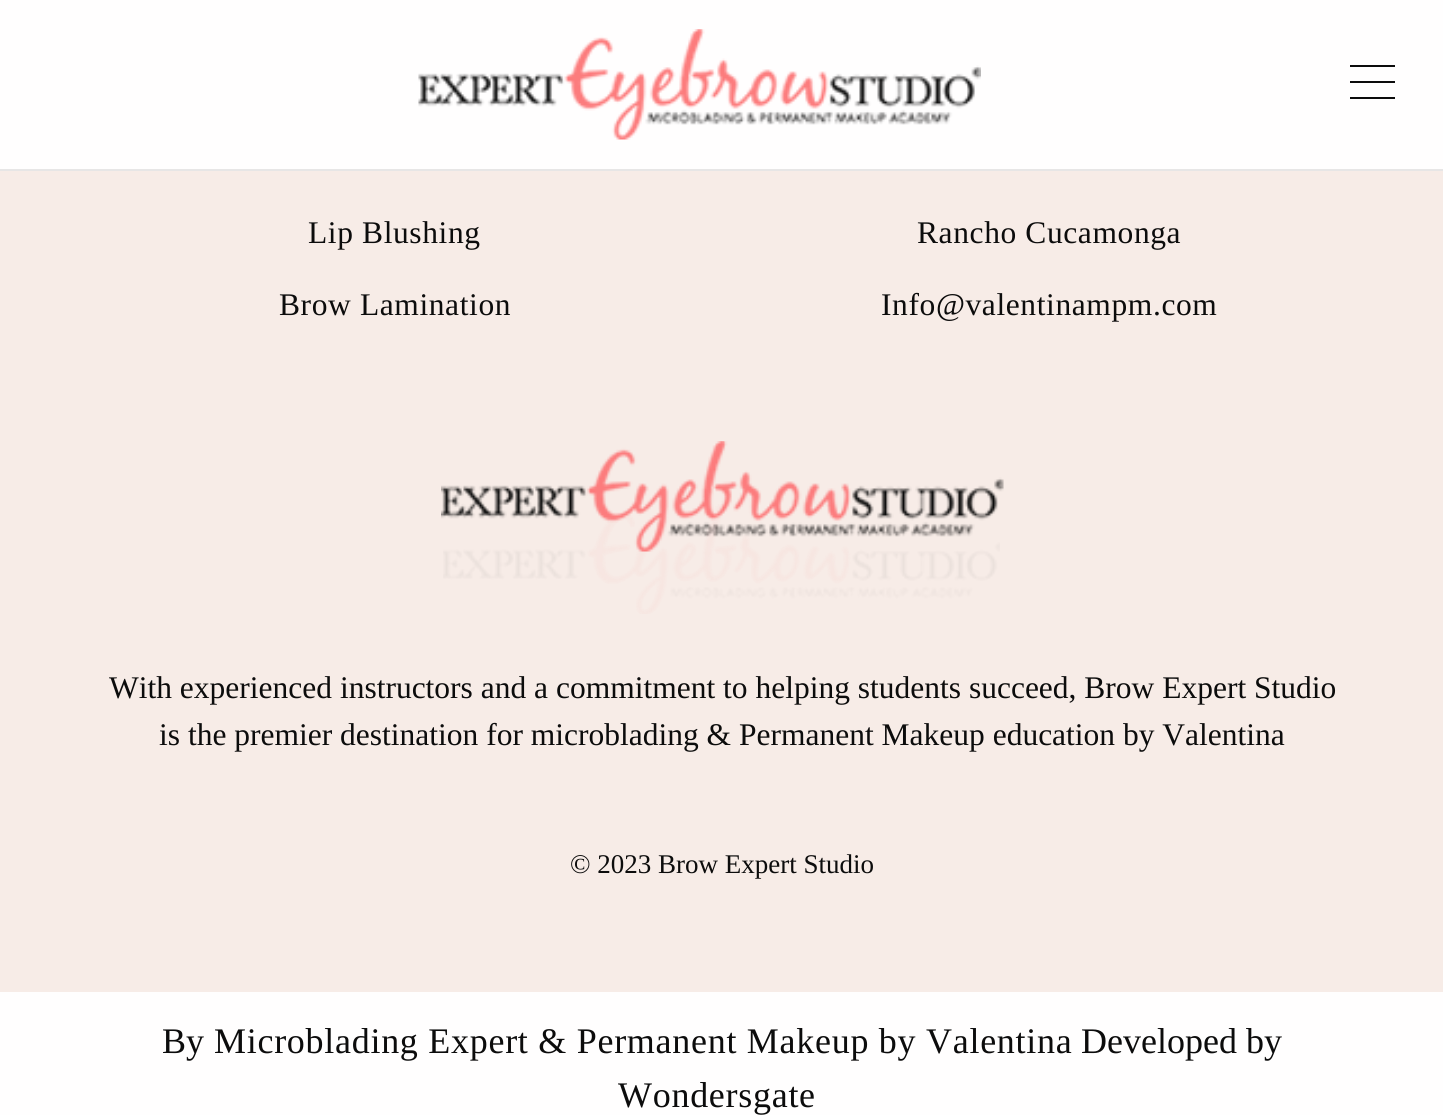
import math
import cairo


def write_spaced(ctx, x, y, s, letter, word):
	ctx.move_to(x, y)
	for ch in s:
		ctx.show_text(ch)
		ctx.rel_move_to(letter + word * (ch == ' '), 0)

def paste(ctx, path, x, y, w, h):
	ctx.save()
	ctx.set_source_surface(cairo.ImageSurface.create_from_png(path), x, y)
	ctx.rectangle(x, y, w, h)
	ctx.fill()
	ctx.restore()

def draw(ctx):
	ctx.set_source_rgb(1, 0.996, 0.996)
	ctx.paint()
	ctx.set_source_rgb(0.906, 0.902, 0.902)
	ctx.rectangle(0, 169, 1443, 2)
	ctx.fill()
	paste(ctx, 'media/1.png', 418, 29, 563, 111)
	ctx.set_source_rgb(0.047, 0.047, 0.047)
	ctx.rectangle(1350, 97, 45, 2)
	ctx.rectangle(1350, 65, 45, 2)
	ctx.rectangle(1350, 81, 45, 2)
	ctx.fill()
	ctx.set_source_rgb(0.965, 0.922, 0.906)
	ctx.rectangle(0, 171, 1443, 821)
	ctx.fill()
	ctx.select_font_face('Liberation Serif')
	ctx.set_font_size(31.5)
	ctx.set_source_rgb(0.047, 0.047, 0.047)
	for x, y, s in [
		(308, 243, 'Lip Blushing'),
		(279, 315, 'Brow Lamination'),
		(917, 243, 'Rancho Cucamonga'),
		(881, 315, 'Info@valentinampm.com'),
	]:
		write_spaced(ctx, x, y, s, 0.6, 0)
	paste(ctx, 'media/2.png', 441, 441, 563, 111)
	ctx.move_to(109, 698)
	ctx.show_text('With experienced instructors and a commitment to helping students succeed, Brow Expert Studio')
	ctx.move_to(159, 745)
	ctx.show_text('is the premier destination for microblading & Permanent Makeup education by Valentina')
	ctx.set_font_size(27)
	ctx.move_to(570, 873)
	ctx.show_text('© 2023 Brow Expert Studio')
	ctx.set_font_size(36)
	ctx.move_to(162, 1053)
	ctx.show_text('By')
	write_spaced(ctx, 214, 1053, 'Microblading Expert & Permanent Makeup by Valentina', 0.72, 0)
	ctx.move_to(1081, 1053)
	ctx.show_text('Developed by')
	write_spaced(ctx, 618, 1107, 'Wondersgate', 0.72, 0)
	paste(ctx, 'media/3.png', 443, 504, 557, 110)


surface = cairo.ImageSurface(cairo.FORMAT_RGB24, 1443, 1115)
ctx = cairo.Context(surface)
options = cairo.FontOptions()
options.set_hint_metrics(cairo.HINT_METRICS_OFF)
options.set_hint_style(cairo.HINT_STYLE_NONE)
ctx.set_font_options(options)
ctx.set_miter_limit(4)
draw(ctx)
surface.write_to_png('image.png')
